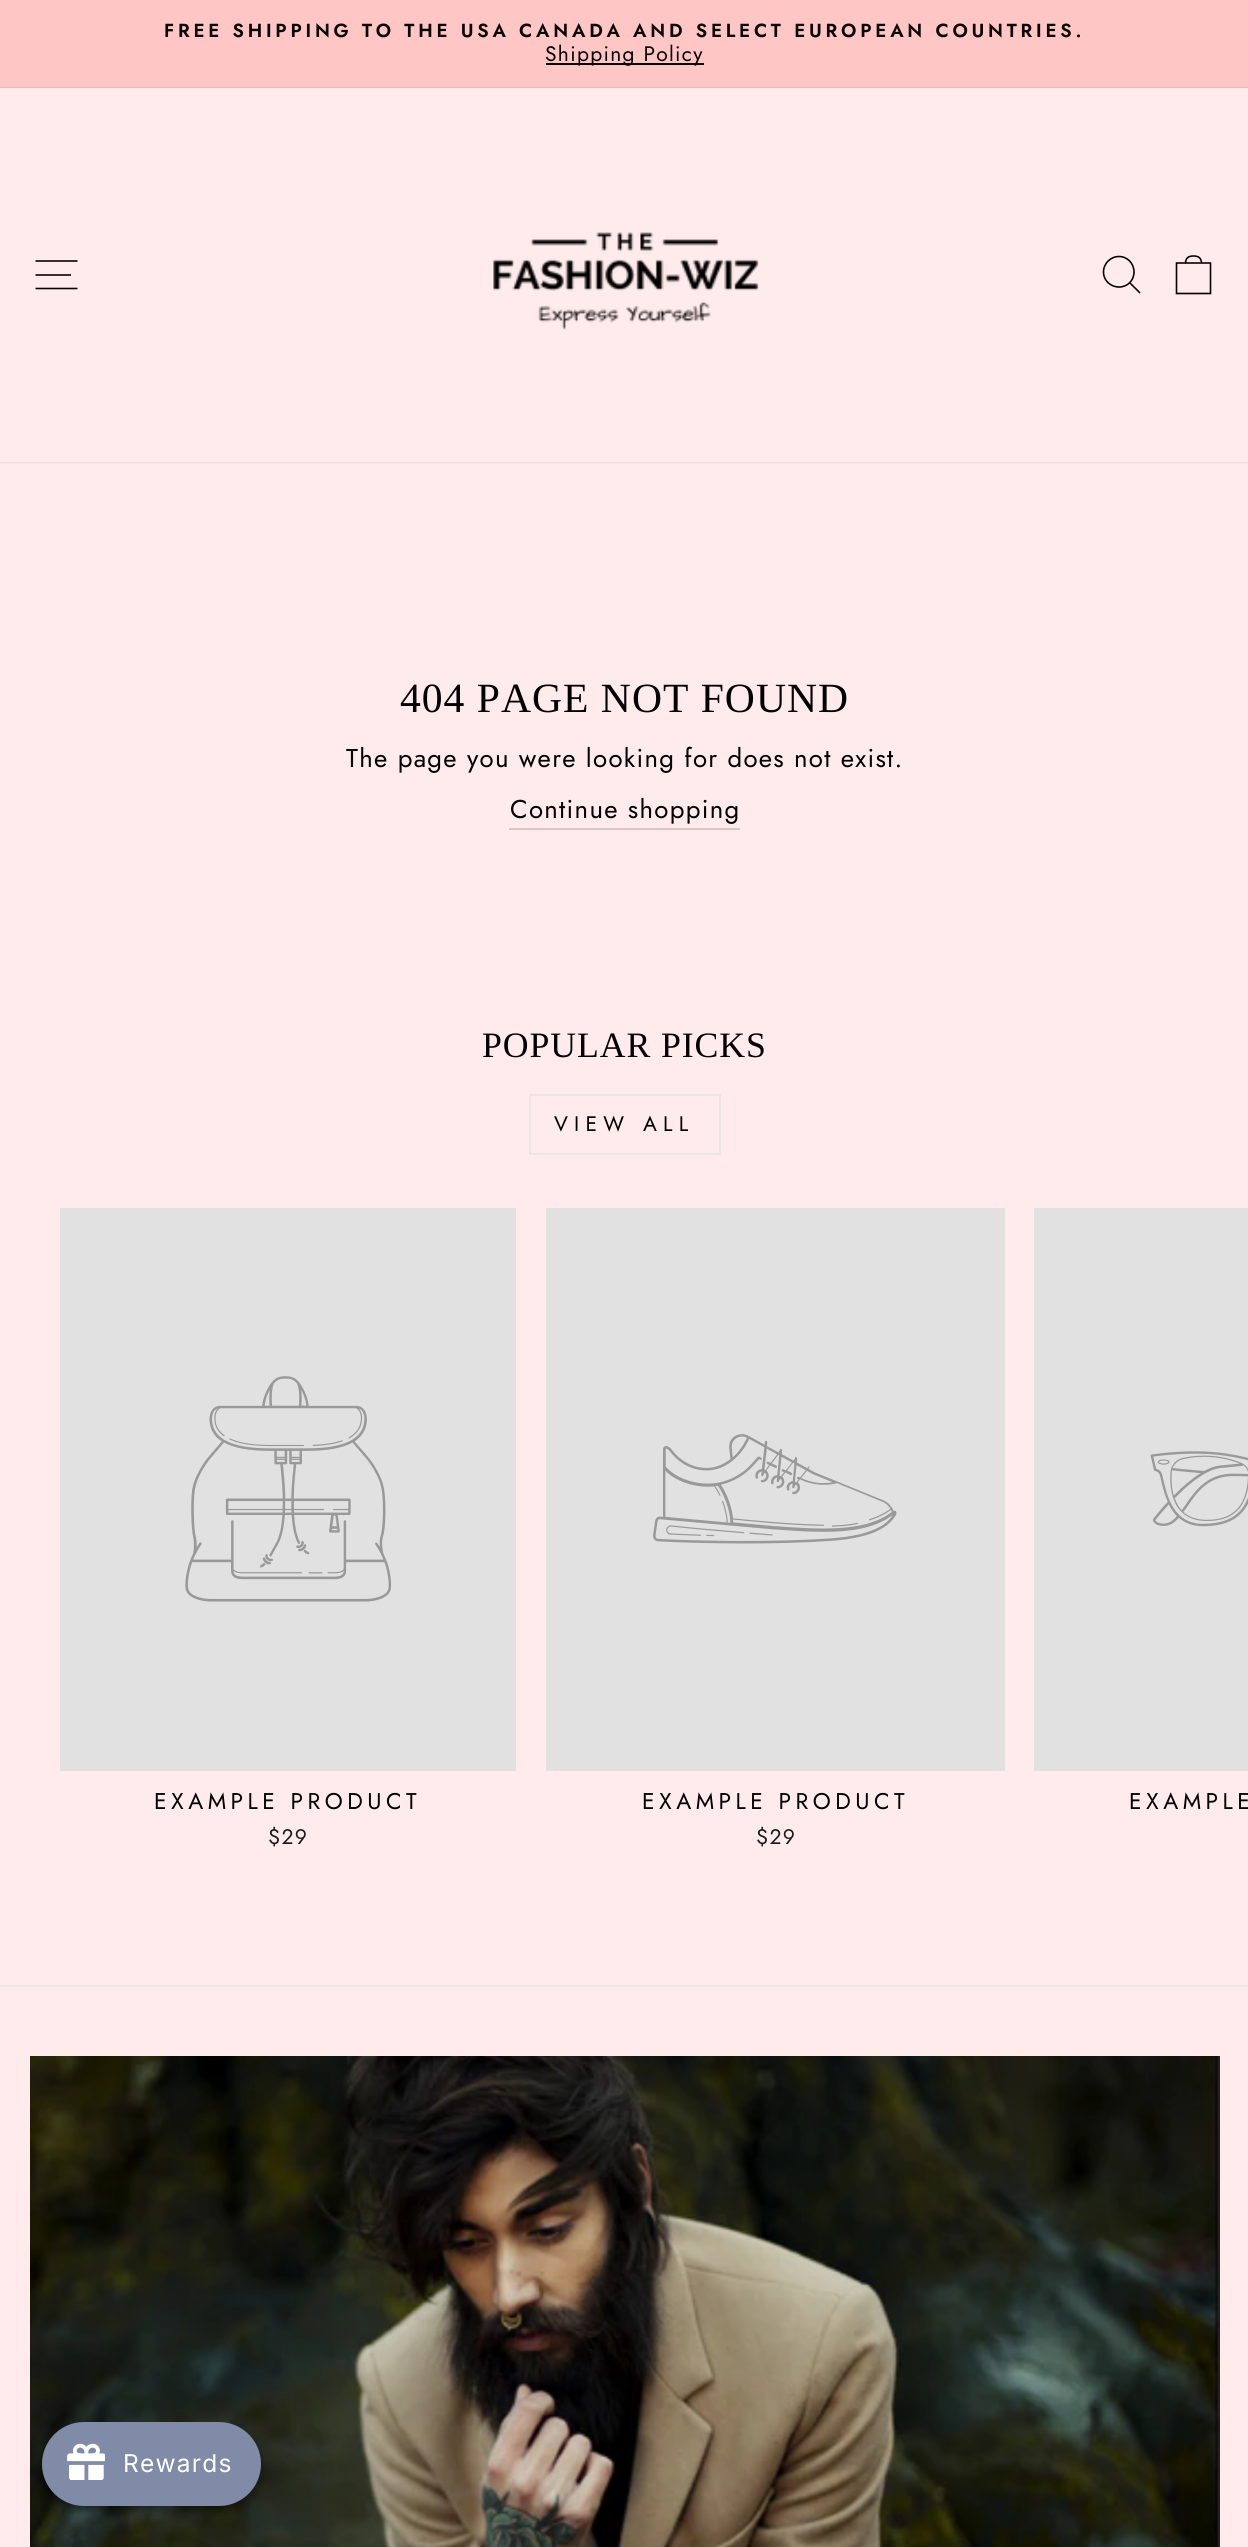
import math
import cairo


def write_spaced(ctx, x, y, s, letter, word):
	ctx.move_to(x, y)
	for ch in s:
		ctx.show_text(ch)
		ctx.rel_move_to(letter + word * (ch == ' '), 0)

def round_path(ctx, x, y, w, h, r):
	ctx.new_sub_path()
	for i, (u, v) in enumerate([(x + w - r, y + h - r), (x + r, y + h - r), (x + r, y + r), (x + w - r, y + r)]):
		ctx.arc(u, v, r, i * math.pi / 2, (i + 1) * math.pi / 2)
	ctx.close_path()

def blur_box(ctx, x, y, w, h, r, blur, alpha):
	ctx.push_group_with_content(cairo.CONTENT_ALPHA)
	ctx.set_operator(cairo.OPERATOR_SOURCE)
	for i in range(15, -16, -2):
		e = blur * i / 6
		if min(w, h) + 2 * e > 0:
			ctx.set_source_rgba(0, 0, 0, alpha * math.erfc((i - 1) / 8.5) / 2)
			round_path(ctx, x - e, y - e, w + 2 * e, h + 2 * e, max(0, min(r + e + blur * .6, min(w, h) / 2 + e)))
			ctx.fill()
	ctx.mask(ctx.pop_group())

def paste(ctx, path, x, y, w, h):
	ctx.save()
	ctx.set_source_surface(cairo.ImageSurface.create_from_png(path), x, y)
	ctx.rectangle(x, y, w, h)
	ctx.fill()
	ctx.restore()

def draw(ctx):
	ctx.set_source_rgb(1, 0.918, 0.918)
	ctx.paint()
	ctx.set_source_rgb(1, 0.776, 0.776)
	ctx.rectangle(0, 0, 1248, 88)
	ctx.fill()
	ctx.select_font_face('Jost SemiBold')
	ctx.set_font_size(18.9)
	ctx.set_source_rgb(0.039, 0, 0)
	write_spaced(ctx, 164, 37, 'FREE SHIPPING TO THE USA CANADA AND SELECT EUROPEAN COUNTRIES.', 3.78, 0)
	ctx.rectangle(546, 63, 158, 2)
	ctx.fill()
	ctx.select_font_face('Jost')
	ctx.set_font_size(21)
	write_spaced(ctx, 545, 61, 'Shipping Policy', 1.3, 0)
	ctx.save()
	ctx.set_fill_rule(cairo.FILL_RULE_EVEN_ODD)
	ctx.new_path()
	ctx.move_to(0, 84)
	ctx.line_to(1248, 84)
	ctx.line_to(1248, 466)
	ctx.line_to(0, 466)
	ctx.close_path()
	ctx.move_to(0, 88)
	ctx.line_to(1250, 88)
	ctx.line_to(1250, 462)
	ctx.line_to(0, 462)
	ctx.close_path()
	ctx.clip()
	ctx.set_source_rgb(0, 0, 0)
	blur_box(ctx, 0, 88, 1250, 374, 0, 1, 0.2)
	ctx.restore()
	ctx.new_path()
	ctx.move_to(35.5, 261)
	ctx.line_to(77.5, 261)
	ctx.move_to(35.5, 275)
	ctx.line_to(71, 275)
	ctx.move_to(35.5, 288.5)
	ctx.line_to(77.5, 288.5)
	ctx.set_line_width(1.6)
	ctx.stroke()
	paste(ctx, 'media/1.png', 493, 232, 266, 98)
	ctx.new_path()
	ctx.move_to(1134, 272)
	ctx.curve_to(1134, 280.5, 1127.5, 287, 1119, 287)
	ctx.curve_to(1110.5, 287, 1103.5, 280.5, 1103.5, 272)
	ctx.curve_to(1103.5, 263.5, 1110.5, 256.5, 1119, 256.5)
	ctx.curve_to(1127.5, 256.5, 1134, 263.5, 1134, 272)
	ctx.close_path()
	ctx.move_to(1140, 293)
	ctx.line_to(1130, 283)
	ctx.stroke()
	ctx.new_path()
	ctx.move_to(1176.5, 263)
	ctx.line_to(1210.5, 263)
	ctx.line_to(1210.5, 293.5)
	ctx.line_to(1176.5, 293.5)
	ctx.close_path()
	ctx.move_to(1185.5, 263.5)
	ctx.curve_to(1185.5, 257.5, 1189, 256, 1193.5, 256)
	ctx.curve_to(1198, 256, 1201.5, 257.5, 1201.5, 263.5)
	ctx.stroke()
	ctx.select_font_face('Liberation Serif')
	ctx.set_font_size(41.6)
	ctx.set_source_rgb(0, 0, 0)
	write_spaced(ctx, 400, 712, '404 PAGE NOT FOUND', 1, 0)
	ctx.select_font_face('Jost')
	ctx.set_font_size(25.75)
	write_spaced(ctx, 346, 767, 'The page you were looking for does not exist.', 1.3, 0)
	ctx.set_source_rgb(0.851, 0.78, 0.78)
	ctx.rectangle(509, 828, 231, 2)
	ctx.fill()
	ctx.set_source_rgb(0, 0, 0)
	write_spaced(ctx, 510, 818, 'Continue shopping', 1.3, 0)
	ctx.select_font_face('Liberation Serif')
	ctx.set_font_size(35.75)
	write_spaced(ctx, 482, 1057, 'POPULAR PICKS', 0.9, 0)
	ctx.rectangle(530, 1095, 190, 59)
	ctx.set_source_rgb(0.91, 0.91, 0.882)
	ctx.set_line_width(2)
	ctx.stroke()
	ctx.select_font_face('Jost')
	ctx.set_font_size(21)
	ctx.set_source_rgb(0, 0, 0)
	write_spaced(ctx, 554, 1131, 'VIEW ALL', 6.25, 0)
	ctx.set_source_rgb(0.882, 0.882, 0.882)
	ctx.rectangle(60, 1208, 456, 563)
	ctx.fill()
	paste(ctx, 'media/2.png', 185, 1376, 207, 226)
	ctx.set_font_size(22.75)
	ctx.set_source_rgb(0, 0, 0)
	write_spaced(ctx, 154, 1809, 'EXAMPLE PRODUCT', 4.5, 0)
	ctx.set_font_size(21)
	ctx.set_source_rgb(0.11, 0.114, 0.114)
	write_spaced(ctx, 268, 1844, '$29', 1.3, 0)
	ctx.set_source_rgb(0.882, 0.882, 0.882)
	ctx.rectangle(546, 1208, 459, 563)
	ctx.fill()
	paste(ctx, 'media/3.png', 653, 1434, 244, 110)
	ctx.set_font_size(22.75)
	ctx.set_source_rgb(0, 0, 0)
	write_spaced(ctx, 642, 1809, 'EXAMPLE PRODUCT', 4.5, 0)
	ctx.set_font_size(21)
	ctx.set_source_rgb(0.11, 0.114, 0.114)
	write_spaced(ctx, 756, 1844, '$29', 1.3, 0)
	ctx.set_source_rgb(0.882, 0.882, 0.882)
	ctx.rectangle(1034, 1208, 214, 563)
	ctx.fill()
	paste(ctx, 'media/4.png', 1150, 1451, 98, 76)
	ctx.set_font_size(22.75)
	ctx.set_source_rgb(0, 0, 0)
	write_spaced(ctx, 1129, 1809, 'EXAMPLE', 4.5, 0)
	ctx.set_source_rgb(0.91, 0.91, 0.882)
	ctx.rectangle(0, 1985, 1248, 2)
	ctx.fill()
	paste(ctx, 'media/5.png', 30, 2056, 1190, 491)
	ctx.set_source_rgb(0, 0, 0)
	blur_box(ctx, 42, 2433, 219, 84, 42, 9, 0.14)
	blur_box(ctx, 44, 2429, 215, 81, 40.5, 4.5, 0.2)
	blur_box(ctx, 44, 2429, 215, 81, 40.5, 4.5, 0.2)
	ctx.set_source_rgb(0.502, 0.545, 0.655)
	round_path(ctx, 42, 2422, 219, 84, 42)
	ctx.fill()
	paste(ctx, 'media/6.png', 67, 2443, 38, 37)
	ctx.select_font_face('Inter')
	ctx.set_font_size(24.5)
	ctx.set_source_rgb(1, 1, 1)
	write_spaced(ctx, 123, 2472, 'Rewards', 1.25, 0)


surface = cairo.ImageSurface(cairo.FORMAT_RGB24, 1248, 2547)
ctx = cairo.Context(surface)
options = cairo.FontOptions()
options.set_hint_metrics(cairo.HINT_METRICS_OFF)
options.set_hint_style(cairo.HINT_STYLE_NONE)
ctx.set_font_options(options)
ctx.set_miter_limit(4)
draw(ctx)
surface.write_to_png('image.png')
